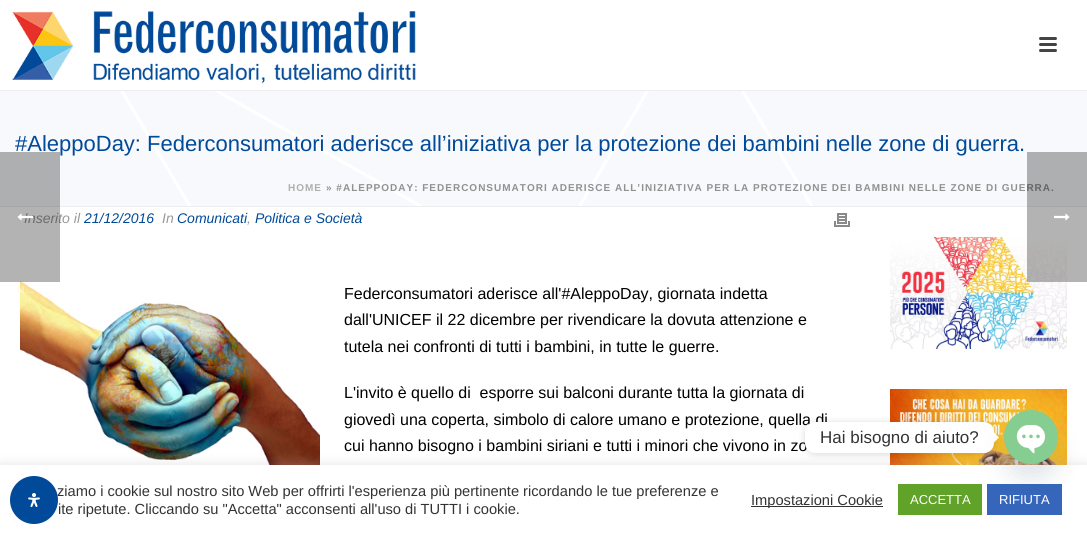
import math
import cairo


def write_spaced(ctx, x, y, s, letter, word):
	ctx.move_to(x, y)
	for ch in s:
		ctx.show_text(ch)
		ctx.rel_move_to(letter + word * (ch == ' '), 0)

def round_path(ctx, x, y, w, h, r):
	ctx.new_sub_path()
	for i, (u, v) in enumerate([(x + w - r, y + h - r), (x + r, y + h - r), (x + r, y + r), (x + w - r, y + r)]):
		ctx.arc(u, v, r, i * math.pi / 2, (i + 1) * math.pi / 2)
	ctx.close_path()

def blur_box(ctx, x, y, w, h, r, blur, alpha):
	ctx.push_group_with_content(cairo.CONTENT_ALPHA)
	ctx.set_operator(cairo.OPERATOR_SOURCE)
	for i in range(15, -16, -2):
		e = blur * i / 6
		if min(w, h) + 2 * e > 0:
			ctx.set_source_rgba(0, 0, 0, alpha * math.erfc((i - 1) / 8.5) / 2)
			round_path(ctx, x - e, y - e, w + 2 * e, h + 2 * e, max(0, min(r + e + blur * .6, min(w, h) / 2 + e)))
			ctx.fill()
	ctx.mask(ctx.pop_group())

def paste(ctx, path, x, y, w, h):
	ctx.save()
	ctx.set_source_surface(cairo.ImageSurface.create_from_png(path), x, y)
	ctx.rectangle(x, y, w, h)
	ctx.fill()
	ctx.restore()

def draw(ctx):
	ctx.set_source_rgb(0.969, 0.976, 0.988)
	ctx.paint()
	paste(ctx, 'media/1.png', 120, 91, 694, 115)
	ctx.set_source_rgb(0.929, 0.929, 0.929)
	ctx.rectangle(0, 206, 1087, 1)
	ctx.rectangle(0, 90, 1087, 1)
	ctx.fill()
	ctx.set_source_rgb(1, 1, 1)
	ctx.rectangle(0, 0, 1087, 90)
	ctx.fill()
	paste(ctx, 'media/2.png', 12, 11, 404, 73)
	ctx.set_source_rgb(0.267, 0.267, 0.267)
	round_path(ctx, 1039, 37, 18, 3, 1.5)
	ctx.fill()
	round_path(ctx, 1039, 43, 18, 3, 1.5)
	ctx.fill()
	round_path(ctx, 1039, 49, 18, 3, 1.5)
	ctx.fill()
	ctx.select_font_face('Liberation Sans')
	ctx.set_font_size(22)
	ctx.set_source_rgb(0, 0.29, 0.6)
	ctx.move_to(15, 151)
	ctx.show_text('#AleppoDay: Federconsumatori aderisce all’iniziativa per la protezione dei bambini nelle zone di guerra.')
	ctx.select_font_face('Liberation Sans', cairo.FONT_SLANT_NORMAL, cairo.FONT_WEIGHT_BOLD)
	ctx.set_font_size(10)
	ctx.set_source_rgb(0.686, 0.686, 0.686)
	write_spaced(ctx, 288, 191, 'HOME', 1, 0)
	ctx.set_source_rgb(0.569, 0.569, 0.569)
	write_spaced(ctx, 326, 191, '» #ALEPPODAY: FEDERCONSUMATORI ADERISCE ALL’INIZIATIVA PER LA PROTEZIONE DEI BAMBINI NELLE ZONE DI GUERRA.', 1, 0)
	ctx.set_source_rgb(1, 1, 1)
	ctx.rectangle(0, 207, 1087, 258)
	ctx.fill()
	ctx.select_font_face('Liberation Sans', cairo.FONT_SLANT_ITALIC)
	ctx.set_font_size(14)
	ctx.set_source_rgb(0.6, 0.6, 0.6)
	ctx.move_to(24, 223)
	ctx.show_text('Inserito il')
	ctx.set_source_rgb(0, 0.29, 0.6)
	ctx.move_to(84, 223)
	ctx.show_text('21/12/2016')
	ctx.set_source_rgb(0.6, 0.6, 0.6)
	ctx.move_to(162, 223)
	ctx.show_text('In')
	ctx.set_source_rgb(0, 0.29, 0.6)
	ctx.move_to(177, 223)
	ctx.show_text('Comunicati')
	ctx.set_source_rgb(0.6, 0.6, 0.6)
	ctx.move_to(247, 223)
	ctx.show_text(',')
	ctx.set_source_rgb(0, 0.29, 0.6)
	ctx.move_to(255, 223)
	ctx.show_text('Politica e Società')
	paste(ctx, 'media/3.png', 834, 213, 16, 14)
	paste(ctx, 'media/4.png', 20, 281, 300, 184)
	ctx.select_font_face('Liberation Sans')
	ctx.set_font_size(16)
	ctx.set_source_rgb(0, 0, 0)
	for x, y, s in [
		(344, 299, 'Federconsumatori aderisce all\'#AleppoDay, giornata indetta'),
		(344, 325, 'dall\'UNICEF il 22 dicembre per rivendicare la dovuta attenzione e'),
		(344, 352, 'tutela nei confronti di tutti i bambini, in tutte le guerre.'),
		(344, 398, 'L\'invito è quello di  esporre sui balconi durante tutta la giornata di'),
		(344, 425, 'giovedì una coperta, simbolo di calore umano e protezione, quella di'),
		(344, 451, 'cui hanno bisogno i bambini siriani e tutti i minori che vivono in zo'),
	]:
		ctx.move_to(x, y)
		ctx.show_text(s)
	paste(ctx, 'media/5.png', 890, 237, 177, 112)
	paste(ctx, 'media/6.png', 890, 389, 177, 76)
	ctx.set_source_rgba(0, 0, 0, 0.3)
	ctx.rectangle(1027, 152, 60, 130)
	ctx.fill()
	paste(ctx, 'media/7.png', 1054, 213, 16, 8)
	ctx.rectangle(0, 152, 60, 130)
	ctx.fill()
	paste(ctx, 'media/8.png', 17, 213, 16, 8)
	ctx.set_font_size(10)
	ctx.set_source_rgb(0.996, 0.976, 0.886)
	write_spaced(ctx, 17, 293, 'N…', 1, 0)
	ctx.set_source_rgb(0.675, 0.671, 0.671)
	blur_box(ctx, 0, 464, 1087, 69, 0, 5, 0.3)
	ctx.set_source_rgb(1, 1, 1)
	ctx.rectangle(0, 465, 1087, 69)
	ctx.fill()
	ctx.set_source_rgb(0, 0, 0)
	blur_box(ctx, 805, 423, 189, 31, 10, 4, 0.15)
	ctx.set_source_rgb(1, 1, 1)
	round_path(ctx, 805, 422, 189, 31, 10)
	ctx.fill()
	ctx.set_font_size(17)
	ctx.set_source_rgb(0.2, 0.2, 0.2)
	ctx.move_to(820, 443)
	ctx.show_text('Hai bisogno di aiuto?')
	ctx.set_source_rgb(1, 1, 1)
	ctx.new_path()
	ctx.move_to(994, 442.5)
	ctx.line_to(994, 432.5)
	ctx.line_to(999, 437.5)
	ctx.close_path()
	ctx.fill()
	ctx.set_source_rgb(0.38, 0.635, 0.161)
	ctx.rectangle(898, 484, 84, 31)
	ctx.fill()
	ctx.set_source_rgb(0.208, 0.4, 0.733)
	ctx.rectangle(987, 484, 75, 31)
	ctx.fill()
	ctx.set_source_rgb(0.286, 0.408, 0.494)
	blur_box(ctx, 1004, 426, 54, 54, 27, 12, 0.16)
	paste(ctx, 'media/9.png', 1004, 410, 54, 54)
	ctx.set_font_size(14.65)
	ctx.set_source_rgb(0.2, 0.2, 0.2)
	ctx.move_to(57, 496)
	ctx.show_text('ziamo i cookie sul nostro sito Web per offrirti l\'esperienza più pertinente ricordando le tue preferenze e')
	ctx.set_source_rgb(0, 0.29, 0.6)
	ctx.new_path()
	ctx.arc(34, 500, 24, 0, 2 * math.pi)
	ctx.fill()
	paste(ctx, 'media/10.png', 28, 493, 12, 14)
	ctx.set_source_rgb(0.2, 0.2, 0.2)
	ctx.move_to(58, 514)
	ctx.show_text('ite ripetute. Cliccando su "Accetta" acconsenti all\'uso di TUTTI i cookie.')
	ctx.rectangle(751, 506, 132, 1)
	ctx.fill()
	ctx.move_to(751, 505)
	ctx.show_text('Impostazioni Cookie')
	ctx.set_font_size(13)
	ctx.set_source_rgb(1, 1, 1)
	ctx.move_to(910, 504)
	ctx.show_text('ACCETTA')
	ctx.move_to(999, 504)
	ctx.show_text('RIFIUTA')


surface = cairo.ImageSurface(cairo.FORMAT_RGB24, 1087, 534)
ctx = cairo.Context(surface)
options = cairo.FontOptions()
options.set_hint_metrics(cairo.HINT_METRICS_OFF)
options.set_hint_style(cairo.HINT_STYLE_NONE)
ctx.set_font_options(options)
ctx.set_miter_limit(4)
draw(ctx)
surface.write_to_png('image.png')
